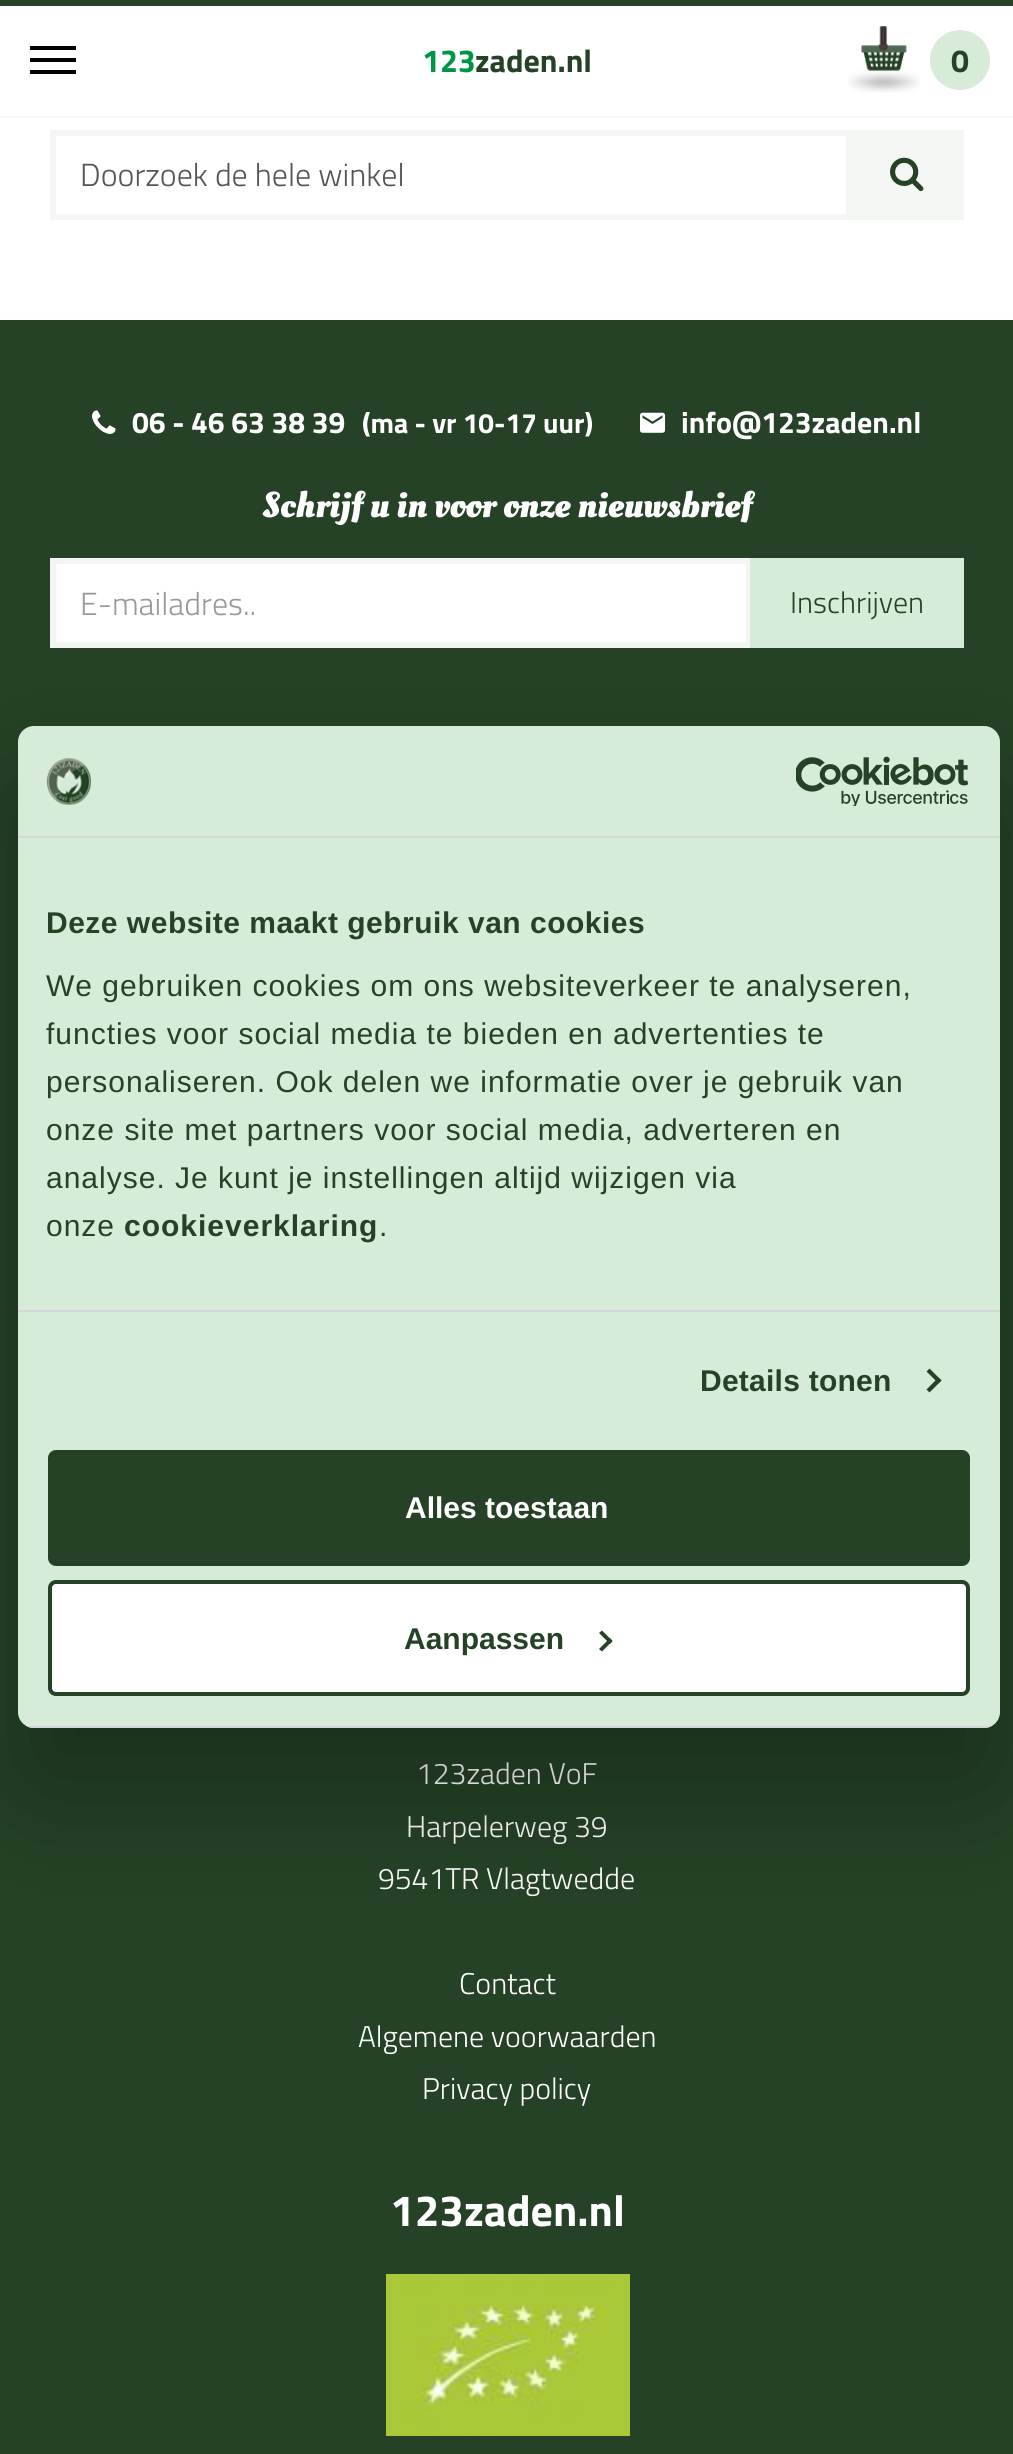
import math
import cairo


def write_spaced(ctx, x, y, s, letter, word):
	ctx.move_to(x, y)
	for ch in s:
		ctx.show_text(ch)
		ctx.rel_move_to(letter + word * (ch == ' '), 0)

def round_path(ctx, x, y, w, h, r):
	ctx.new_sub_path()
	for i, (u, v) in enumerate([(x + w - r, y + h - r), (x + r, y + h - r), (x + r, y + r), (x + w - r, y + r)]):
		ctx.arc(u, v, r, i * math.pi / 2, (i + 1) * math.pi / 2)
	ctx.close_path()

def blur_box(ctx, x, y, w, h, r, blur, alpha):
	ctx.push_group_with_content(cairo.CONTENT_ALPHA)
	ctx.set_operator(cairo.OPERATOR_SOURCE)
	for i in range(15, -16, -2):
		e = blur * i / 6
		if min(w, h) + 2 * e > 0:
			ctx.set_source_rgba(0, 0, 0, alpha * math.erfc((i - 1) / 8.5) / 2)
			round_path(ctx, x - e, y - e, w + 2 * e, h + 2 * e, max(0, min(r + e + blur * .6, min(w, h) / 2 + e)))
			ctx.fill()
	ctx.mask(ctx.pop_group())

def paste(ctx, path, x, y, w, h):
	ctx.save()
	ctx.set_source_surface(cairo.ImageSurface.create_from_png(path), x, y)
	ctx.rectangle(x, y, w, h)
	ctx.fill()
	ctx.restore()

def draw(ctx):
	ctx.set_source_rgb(1, 1, 1)
	ctx.paint()
	ctx.set_source_rgb(0.145, 0.259, 0.149)
	ctx.rectangle(0, 0, 1013, 6)
	ctx.fill()
	ctx.set_source_rgb(0.957, 0.961, 0.957)
	ctx.rectangle(0, 116, 1013, 2)
	ctx.fill()
	ctx.set_source_rgb(0, 0, 0)
	ctx.rectangle(30, 58, 46, 4)
	ctx.rectangle(30, 46, 46, 4)
	ctx.rectangle(30, 70, 46, 4)
	ctx.fill()
	ctx.select_font_face('Titillium Web', cairo.FONT_SLANT_NORMAL, cairo.FONT_WEIGHT_BOLD)
	ctx.set_font_size(32)
	ctx.set_source_rgb(0, 0.584, 0.267)
	ctx.move_to(422, 72)
	ctx.show_text('123')
	ctx.set_source_rgb(0.145, 0.259, 0.149)
	ctx.move_to(475, 72)
	ctx.show_text('zaden.nl')
	paste(ctx, 'media/1.png', 848, 26, 72, 67)
	ctx.set_source_rgb(0.843, 0.922, 0.847)
	ctx.arc(960, 60, 32, 0, 2 * math.pi)
	ctx.fill_preserve()
	ctx.set_source_rgb(1, 1, 1)
	ctx.set_line_width(4)
	ctx.stroke()
	ctx.set_source_rgb(0.145, 0.259, 0.149)
	ctx.move_to(951, 72)
	ctx.show_text('0')
	ctx.rectangle(53, 133, 796, 84)
	ctx.set_source_rgb(0.957, 0.961, 0.957)
	ctx.set_line_width(6)
	ctx.stroke()
	ctx.select_font_face('Titillium Web Light')
	ctx.set_source_rgb(0.333, 0.333, 0.333)
	ctx.move_to(80, 186)
	ctx.show_text('Doorzoek de hele winkel')
	ctx.set_source_rgb(0.957, 0.961, 0.957)
	ctx.rectangle(852, 130, 112, 90)
	ctx.fill()
	paste(ctx, 'media/2.png', 890, 157, 34, 35)
	ctx.set_source_rgb(0.145, 0.259, 0.149)
	ctx.rectangle(0, 320, 1013, 2134)
	ctx.fill()
	paste(ctx, 'media/3.png', 92, 410, 24, 24)
	ctx.select_font_face('Titillium Web', cairo.FONT_SLANT_NORMAL, cairo.FONT_WEIGHT_BOLD)
	ctx.set_font_size(30)
	ctx.set_source_rgb(1, 1, 1)
	ctx.move_to(132, 433)
	ctx.show_text('06 - 46 63 38 39')
	ctx.set_font_size(28)
	ctx.move_to(362, 433)
	ctx.show_text('(ma - vr 10-17 uur)')
	paste(ctx, 'media/4.png', 640, 412, 25, 21)
	ctx.set_font_size(30)
	ctx.move_to(681, 433)
	ctx.show_text('info@123zaden.nl')
	ctx.select_font_face('Oleo Script', cairo.FONT_SLANT_NORMAL, cairo.FONT_WEIGHT_BOLD)
	ctx.set_font_size(36)
	ctx.move_to(262, 517)
	ctx.show_text('Schrijf u in voor onze nieuwsbrief')
	ctx.rectangle(53, 561, 696, 84)
	ctx.fill_preserve()
	ctx.set_source_rgb(0.957, 0.961, 0.957)
	ctx.stroke()
	ctx.select_font_face('Titillium Web Light')
	ctx.set_font_size(32)
	ctx.set_source_rgb(0.6, 0.6, 0.6)
	ctx.move_to(80, 615)
	ctx.show_text('E-mailadres..')
	ctx.set_source_rgb(0.843, 0.922, 0.847)
	ctx.rectangle(750, 558, 214, 90)
	ctx.fill()
	ctx.set_font_size(30)
	ctx.set_source_rgb(0.145, 0.259, 0.149)
	ctx.move_to(790, 613)
	ctx.show_text('Inschrijven')
	ctx.set_source_rgb(1, 1, 1)
	for x, y, s in [
		(416, 1784, '123zaden VoF'),
		(406, 1837, 'Harpelerweg 39'),
		(378, 1889, '9541TR Vlagtwedde'),
		(459, 1994, 'Contact'),
		(358, 2047, 'Algemene voorwaarden'),
		(422, 2099, 'Privacy policy'),
	]:
		ctx.move_to(x, y)
		ctx.show_text(s)
	ctx.select_font_face('Titillium Web', cairo.FONT_SLANT_NORMAL, cairo.FONT_WEIGHT_BOLD)
	ctx.set_font_size(44)
	ctx.move_to(390, 2226)
	ctx.show_text('123zaden.nl')
	paste(ctx, 'media/5.png', 386, 2274, 244, 162)
	ctx.set_source_rgb(0, 0, 0)
	blur_box(ctx, 18, 790, 982, 1002, 16, 68, 0.3)
	ctx.set_source_rgb(0.843, 0.922, 0.847)
	round_path(ctx, 18, 726, 982, 1002, 16)
	ctx.fill()
	ctx.set_source_rgb(0.839, 0.839, 0.839)
	ctx.rectangle(18, 836, 982, 2)
	ctx.fill()
	paste(ctx, 'media/6.png', 46, 758, 45, 47)
	paste(ctx, 'media/7.png', 796, 756, 173, 50)
	ctx.rectangle(18, 1310, 982, 2)
	ctx.fill()
	ctx.select_font_face('Liberation Sans', cairo.FONT_SLANT_NORMAL, cairo.FONT_WEIGHT_BOLD)
	ctx.set_font_size(30)
	ctx.set_source_rgb(0.145, 0.259, 0.149)
	write_spaced(ctx, 46, 933, 'Deze website maakt gebruik van cookies', 0.5, 0)
	ctx.select_font_face('Liberation Sans')
	for x, y, s in [
		(46, 996, 'We gebruiken cookies om ons websiteverkeer te analyseren,'),
		(46, 1044, 'functies voor social media te bieden en advertenties te'),
		(46, 1092, 'personaliseren. Ook delen we informatie over je gebruik van'),
		(46, 1140, 'onze site met partners voor social media, adverteren en'),
		(46, 1188, 'analyse. Je kunt je instellingen altijd wijzigen via'),
		(46, 1236, 'onze'),
	]:
		write_spaced(ctx, x, y, s, 1, 0)
	ctx.select_font_face('Liberation Sans', cairo.FONT_SLANT_NORMAL, cairo.FONT_WEIGHT_BOLD)
	write_spaced(ctx, 124, 1236, 'cookieverklaring', 1, 0)
	ctx.select_font_face('Liberation Sans')
	write_spaced(ctx, 379, 1236, '.', 1, 0)
	ctx.select_font_face('Liberation Sans', cairo.FONT_SLANT_NORMAL, cairo.FONT_WEIGHT_BOLD)
	write_spaced(ctx, 700, 1391, 'Details tonen', 0.25, 0)
	ctx.new_path()
	ctx.move_to(929.5, 1368.5)
	ctx.line_to(941.5, 1380.5)
	ctx.line_to(938.5, 1383.5)
	ctx.line_to(926.5, 1371.5)
	ctx.close_path()
	ctx.fill()
	ctx.new_path()
	ctx.move_to(938.5, 1377.5)
	ctx.line_to(941.5, 1380.5)
	ctx.line_to(929.5, 1392.5)
	ctx.line_to(926.5, 1389.5)
	ctx.close_path()
	ctx.fill()
	ctx.save()
	round_path(ctx, 18, 726, 982, 1002, 16)
	ctx.clip()
	ctx.set_source_rgb(0.839, 0.839, 0.839)
	ctx.rectangle(18, 1726, 982, 2)
	ctx.fill()
	ctx.restore()
	round_path(ctx, 50, 1452, 918, 112, 6)
	ctx.fill_preserve()
	ctx.set_line_width(4)
	ctx.stroke()
	ctx.set_source_rgb(1, 1, 1)
	ctx.move_to(405, 1518)
	ctx.show_text('Alles toestaan')
	round_path(ctx, 50, 1582, 918, 112, 6)
	ctx.fill_preserve()
	ctx.set_source_rgb(0.145, 0.259, 0.149)
	ctx.stroke()
	ctx.move_to(404, 1649)
	ctx.show_text('Aanpassen')
	ctx.new_path()
	ctx.move_to(602, 1630.5)
	ctx.line_to(612.5, 1641)
	ctx.line_to(610, 1644)
	ctx.line_to(599, 1633)
	ctx.close_path()
	ctx.fill()
	ctx.new_path()
	ctx.move_to(610, 1638)
	ctx.line_to(612.5, 1641)
	ctx.line_to(602, 1651.5)
	ctx.line_to(599, 1649)
	ctx.close_path()
	ctx.fill()


surface = cairo.ImageSurface(cairo.FORMAT_RGB24, 1013, 2454)
ctx = cairo.Context(surface)
options = cairo.FontOptions()
options.set_hint_metrics(cairo.HINT_METRICS_OFF)
options.set_hint_style(cairo.HINT_STYLE_NONE)
ctx.set_font_options(options)
ctx.set_miter_limit(4)
draw(ctx)
surface.write_to_png('image.png')
